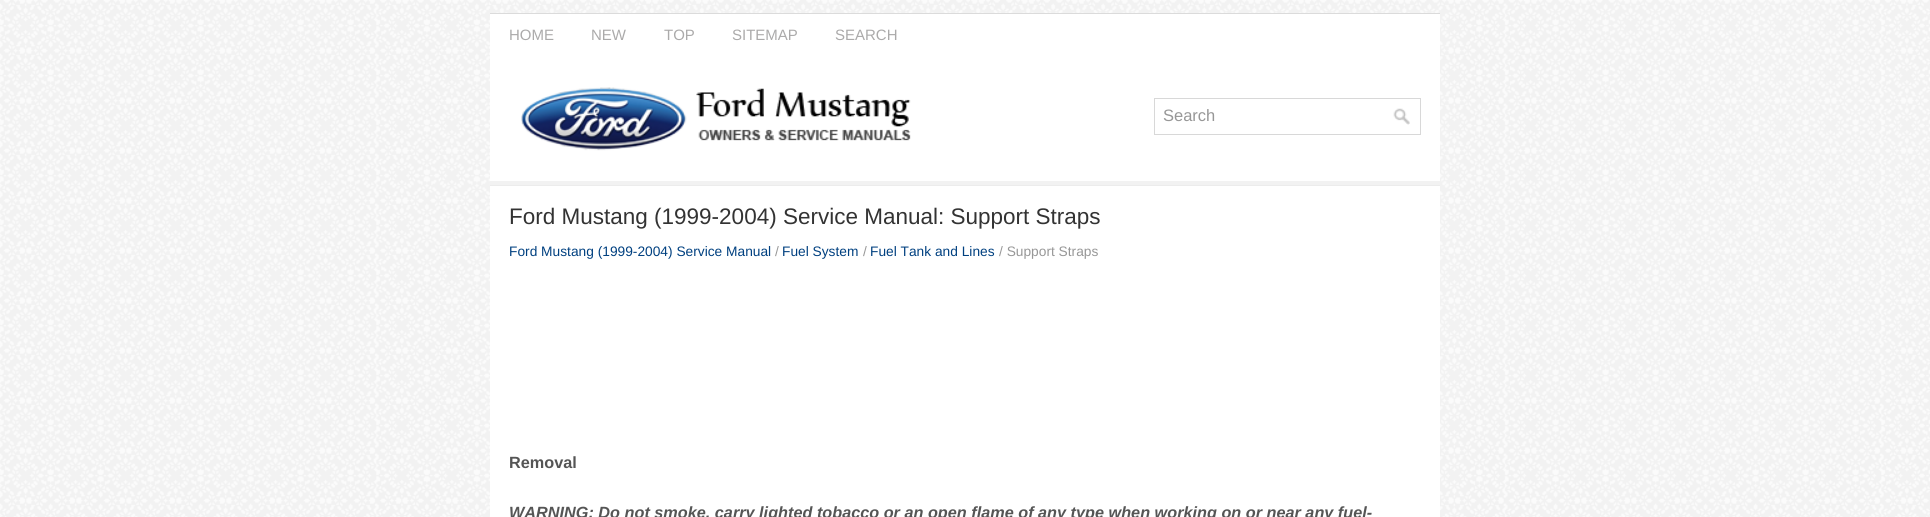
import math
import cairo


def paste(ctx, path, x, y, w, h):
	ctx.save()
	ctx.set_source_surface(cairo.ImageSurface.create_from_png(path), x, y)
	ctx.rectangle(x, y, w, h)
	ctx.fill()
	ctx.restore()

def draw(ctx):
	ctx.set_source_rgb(1, 1, 1)
	ctx.paint()
	paste(ctx, 'media/1.png', 0, 0, 1930, 517)
	ctx.set_source_rgb(1, 1, 1)
	ctx.rectangle(490, 14, 950, 503)
	ctx.fill()
	ctx.set_source_rgb(0.859, 0.859, 0.859)
	ctx.rectangle(490, 13, 950, 1)
	ctx.fill()
	ctx.select_font_face('Liberation Sans')
	ctx.set_font_size(15)
	ctx.set_source_rgb(0.671, 0.667, 0.667)
	for x, y, s in [
		(509, 40, 'HOME'),
		(591, 40, 'NEW'),
		(664, 40, 'TOP'),
		(732, 40, 'SITEMAP'),
		(835, 40, 'SEARCH'),
	]:
		ctx.move_to(x, y)
		ctx.show_text(s)
	paste(ctx, 'media/2.png', 521, 87, 390, 64)
	ctx.rectangle(1154.5, 98.5, 266, 36)
	ctx.set_source_rgb(0.847, 0.847, 0.847)
	ctx.set_line_width(1)
	ctx.stroke()
	ctx.set_font_size(16.5)
	ctx.set_source_rgb(0.592, 0.592, 0.592)
	ctx.move_to(1163, 121)
	ctx.show_text('Search')
	paste(ctx, 'media/3.png', 1393, 108, 17, 17)
	ctx.set_source_rgb(0.949, 0.949, 0.949)
	ctx.rectangle(490, 181, 950, 4)
	ctx.fill()
	ctx.set_source_rgb(0.922, 0.922, 0.922)
	ctx.rectangle(490, 185, 950, 1)
	ctx.fill()
	ctx.set_font_size(22.5)
	ctx.set_source_rgb(0.2, 0.2, 0.2)
	ctx.move_to(509, 224)
	ctx.show_text('Ford Mustang (1999-2004) Service Manual: Support Straps')
	ctx.set_font_size(13.75)
	ctx.set_source_rgb(0, 0.251, 0.502)
	ctx.move_to(509, 256)
	ctx.show_text('Ford Mustang (1999-2004) Service Manual')
	ctx.set_source_rgb(0.592, 0.592, 0.592)
	ctx.move_to(775, 256)
	ctx.show_text('/')
	ctx.set_source_rgb(0, 0.251, 0.502)
	ctx.move_to(782, 256)
	ctx.show_text('Fuel System')
	ctx.set_source_rgb(0.592, 0.592, 0.592)
	ctx.move_to(863, 256)
	ctx.show_text('/')
	ctx.set_source_rgb(0, 0.251, 0.502)
	ctx.move_to(870, 256)
	ctx.show_text('Fuel Tank and Lines')
	ctx.set_source_rgb(0.592, 0.592, 0.592)
	ctx.move_to(999, 256)
	ctx.show_text('/ Support Straps')
	ctx.select_font_face('Liberation Sans', cairo.FONT_SLANT_NORMAL, cairo.FONT_WEIGHT_BOLD)
	ctx.set_font_size(16.25)
	ctx.set_source_rgb(0.333, 0.333, 0.333)
	ctx.move_to(509, 468)
	ctx.show_text('Removal')
	ctx.select_font_face('Liberation Sans', cairo.FONT_SLANT_ITALIC, cairo.FONT_WEIGHT_BOLD)
	ctx.move_to(509, 518)
	ctx.show_text('WARNING: Do not smoke, carry lighted tobacco or an open flame of any type when working on or near any fuel-')


surface = cairo.ImageSurface(cairo.FORMAT_RGB24, 1930, 517)
ctx = cairo.Context(surface)
options = cairo.FontOptions()
options.set_hint_metrics(cairo.HINT_METRICS_OFF)
options.set_hint_style(cairo.HINT_STYLE_NONE)
ctx.set_font_options(options)
ctx.set_miter_limit(4)
draw(ctx)
surface.write_to_png('image.png')
